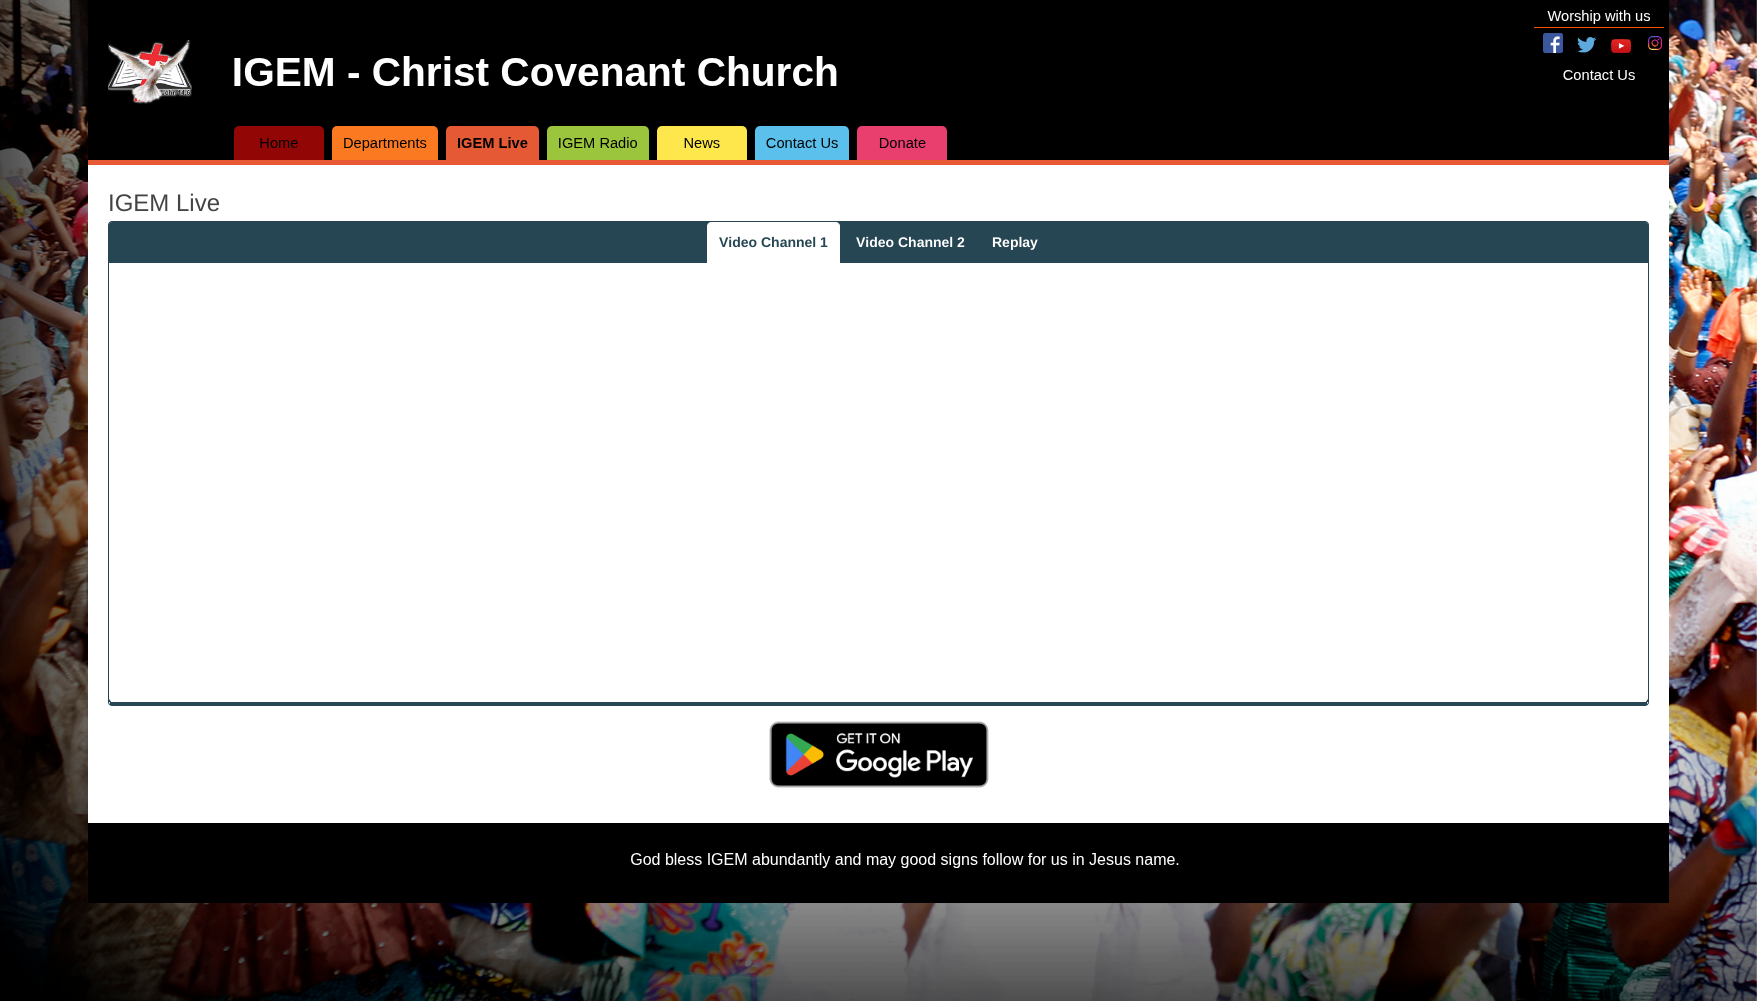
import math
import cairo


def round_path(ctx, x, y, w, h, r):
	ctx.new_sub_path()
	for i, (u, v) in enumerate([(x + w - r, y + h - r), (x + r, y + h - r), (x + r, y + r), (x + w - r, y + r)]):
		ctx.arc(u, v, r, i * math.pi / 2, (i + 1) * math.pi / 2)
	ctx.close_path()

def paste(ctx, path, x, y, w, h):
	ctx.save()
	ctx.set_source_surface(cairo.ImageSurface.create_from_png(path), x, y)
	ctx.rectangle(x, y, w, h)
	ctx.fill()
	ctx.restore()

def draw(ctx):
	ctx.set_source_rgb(1, 1, 1)
	ctx.paint()
	paste(ctx, 'media/1.png', 0, 0, 1757, 1001)
	paste(ctx, 'media/2.png', 88, 0, 1581, 160)
	ctx.set_source_rgb(1, 1, 1)
	ctx.rectangle(88, 165, 1581, 658)
	ctx.fill()
	ctx.set_source_rgb(0.898, 0.349, 0.204)
	ctx.rectangle(88, 160, 1581, 5)
	ctx.fill()
	ctx.select_font_face('Liberation Sans')
	ctx.set_font_size(24)
	ctx.set_source_rgb(0.267, 0.267, 0.267)
	ctx.move_to(108, 211)
	ctx.show_text('IGEM Live')
	ctx.set_source_rgb(0.149, 0.275, 0.325)
	ctx.new_path()
	ctx.move_to(112, 222)
	ctx.line_to(1645, 222)
	ctx.curve_to(1647, 222, 1648, 223, 1648, 225)
	ctx.line_to(1648, 702)
	ctx.line_to(109, 702)
	ctx.line_to(109, 225)
	ctx.curve_to(109, 223, 110, 222, 112, 222)
	ctx.close_path()
	ctx.fill()
	round_path(ctx, 108.5, 221.5, 1540, 484, 3.5)
	ctx.set_line_width(1)
	ctx.stroke()
	ctx.rectangle(110, 702, 1537, 3)
	ctx.fill()
	ctx.set_source_rgb(1, 1, 1)
	ctx.new_path()
	ctx.move_to(711, 222)
	ctx.line_to(836, 222)
	ctx.curve_to(838, 222, 840, 224, 840, 226)
	ctx.line_to(840, 263)
	ctx.line_to(707, 263)
	ctx.line_to(707, 226)
	ctx.curve_to(707, 224, 709, 222, 711, 222)
	ctx.close_path()
	ctx.fill()
	ctx.select_font_face('Liberation Sans', cairo.FONT_SLANT_NORMAL, cairo.FONT_WEIGHT_BOLD)
	ctx.set_font_size(14)
	ctx.set_source_rgb(0.149, 0.275, 0.325)
	ctx.move_to(719, 247)
	ctx.show_text('Video Channel 1')
	ctx.set_source_rgb(1, 1, 1)
	ctx.move_to(856, 247)
	ctx.show_text('Video Channel 2')
	ctx.move_to(992, 247)
	ctx.show_text('Replay')
	ctx.new_path()
	ctx.move_to(109, 263)
	ctx.line_to(1648, 263)
	ctx.line_to(1648, 698)
	ctx.curve_to(1648, 700, 1646, 702, 1644, 702)
	ctx.line_to(113, 702)
	ctx.curve_to(111, 702, 109, 700, 109, 698)
	ctx.close_path()
	ctx.fill()
	ctx.rectangle(111, 701, 1535, 1)
	ctx.fill()
	paste(ctx, 'media/3.png', 769, 721, 220, 67)
	paste(ctx, 'media/4.png', 88, 823, 1581, 80)


surface = cairo.ImageSurface(cairo.FORMAT_RGB24, 1757, 1001)
ctx = cairo.Context(surface)
options = cairo.FontOptions()
options.set_hint_metrics(cairo.HINT_METRICS_OFF)
options.set_hint_style(cairo.HINT_STYLE_NONE)
ctx.set_font_options(options)
ctx.set_miter_limit(4)
draw(ctx)
surface.write_to_png('image.png')
